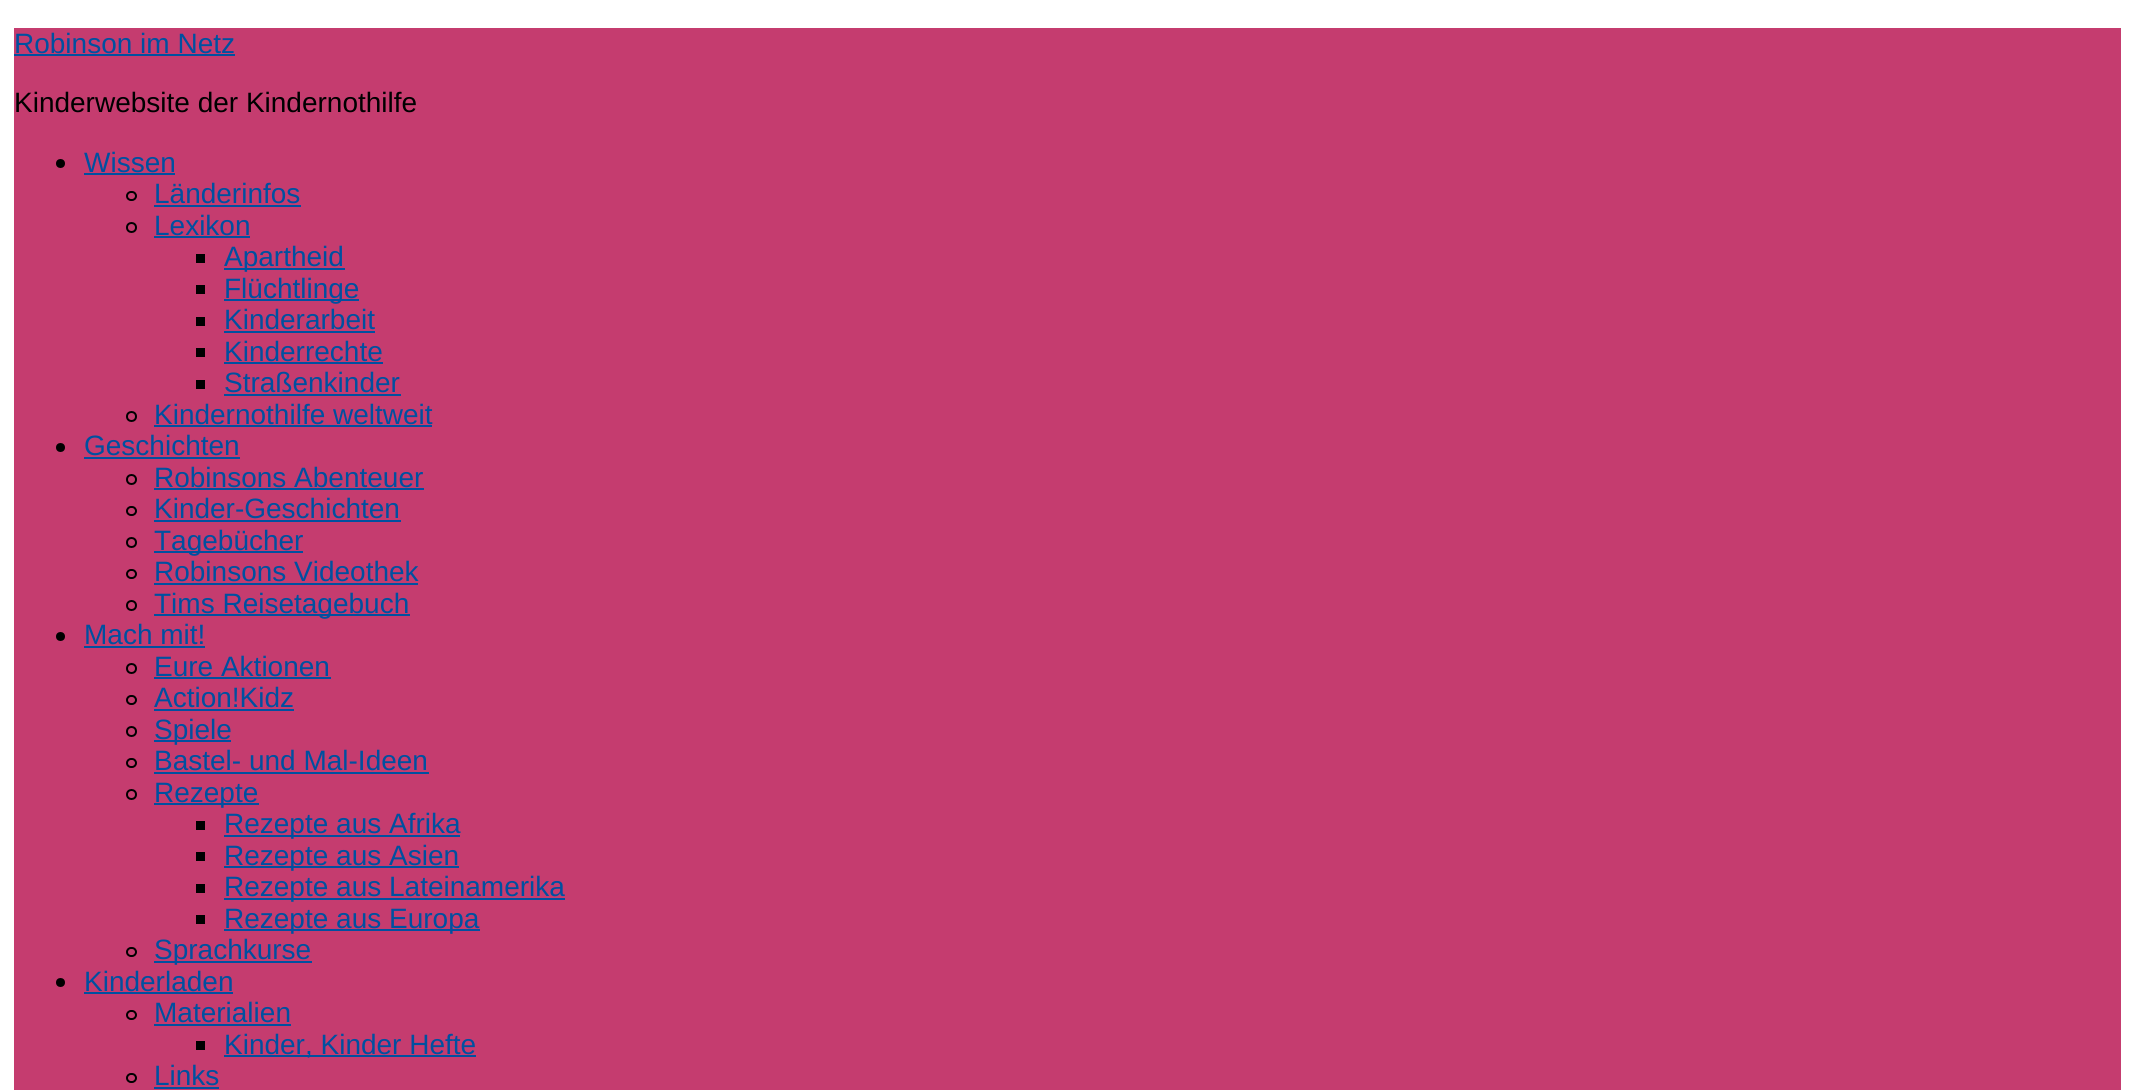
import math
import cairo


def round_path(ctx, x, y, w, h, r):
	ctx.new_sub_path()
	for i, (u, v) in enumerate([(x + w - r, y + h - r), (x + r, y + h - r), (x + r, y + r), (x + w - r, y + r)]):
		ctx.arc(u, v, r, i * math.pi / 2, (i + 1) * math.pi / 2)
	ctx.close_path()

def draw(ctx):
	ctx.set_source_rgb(1, 1, 1)
	ctx.paint()
	ctx.set_source_rgb(0.773, 0.235, 0.435)
	ctx.rectangle(14, 28, 2107, 1062)
	ctx.fill()
	ctx.select_font_face('Liberation Sans')
	ctx.set_font_size(28)
	ctx.set_source_rgb(0, 0.314, 0.627)
	ctx.move_to(14, 53)
	ctx.show_text('Robinson im Netz')
	ctx.rectangle(14, 54, 221, 2)
	ctx.fill()
	ctx.set_source_rgb(0, 0, 0)
	ctx.move_to(14, 112)
	ctx.show_text('Kinderwebsite der Kindernothilfe')
	ctx.new_path()
	ctx.arc(60.5, 163.5, 4.5, 0, 2 * math.pi)
	ctx.fill()
	ctx.set_source_rgb(0, 0.314, 0.627)
	ctx.move_to(84, 172)
	ctx.show_text('Wissen')
	ctx.rectangle(84, 173, 91, 2)
	ctx.fill()
	round_path(ctx, 127, 192, 9, 8, 4)
	ctx.set_source_rgb(0, 0, 0)
	ctx.stroke()
	ctx.set_source_rgb(0, 0.314, 0.627)
	ctx.move_to(154, 203)
	ctx.show_text('Länderinfos')
	ctx.rectangle(154, 205, 147, 2)
	ctx.fill()
	ctx.arc(131.5, 227.5, 4.5, 0, 2 * math.pi)
	ctx.set_source_rgb(0, 0, 0)
	ctx.stroke()
	ctx.set_source_rgb(0, 0.314, 0.627)
	ctx.move_to(154, 235)
	ctx.show_text('Lexikon')
	ctx.rectangle(154, 236, 96, 2)
	ctx.fill()
	ctx.set_source_rgb(0, 0, 0)
	ctx.rectangle(196, 254, 9, 9)
	ctx.fill()
	ctx.set_source_rgb(0, 0.314, 0.627)
	ctx.rectangle(224, 268, 121, 2)
	ctx.fill()
	ctx.move_to(224, 266)
	ctx.show_text('Apartheid')
	ctx.set_source_rgb(0, 0, 0)
	ctx.rectangle(196, 285, 9, 9)
	ctx.fill()
	ctx.set_source_rgb(0, 0.314, 0.627)
	ctx.rectangle(224, 299, 135, 2)
	ctx.fill()
	ctx.move_to(224, 298)
	ctx.show_text('Flüchtlinge')
	ctx.set_source_rgb(0, 0, 0)
	ctx.rectangle(196, 317, 9, 9)
	ctx.fill()
	ctx.set_source_rgb(0, 0.314, 0.627)
	ctx.move_to(224, 329)
	ctx.show_text('Kinderarbeit')
	ctx.rectangle(224, 331, 151, 2)
	ctx.fill()
	ctx.set_source_rgb(0, 0, 0)
	ctx.rectangle(196, 348, 9, 9)
	ctx.fill()
	ctx.set_source_rgb(0, 0.314, 0.627)
	ctx.move_to(224, 361)
	ctx.show_text('Kinderrechte')
	ctx.rectangle(224, 362, 159, 2)
	ctx.fill()
	ctx.set_source_rgb(0, 0, 0)
	ctx.rectangle(196, 380, 9, 9)
	ctx.fill()
	ctx.set_source_rgb(0, 0.314, 0.627)
	ctx.move_to(224, 392)
	ctx.show_text('Straßenkinder')
	ctx.rectangle(224, 394, 177, 2)
	ctx.fill()
	ctx.arc(131.5, 416.5, 4.5, 0, 2 * math.pi)
	ctx.set_source_rgb(0, 0, 0)
	ctx.stroke()
	ctx.set_source_rgb(0, 0.314, 0.627)
	ctx.move_to(154, 424)
	ctx.show_text('Kindernothilfe weltweit')
	ctx.rectangle(154, 425, 278, 2)
	ctx.fill()
	ctx.set_source_rgb(0, 0, 0)
	ctx.arc(60.5, 447.5, 4.5, 0, 2 * math.pi)
	ctx.fill()
	ctx.set_source_rgb(0, 0.314, 0.627)
	ctx.move_to(84, 455)
	ctx.show_text('Geschichten')
	ctx.rectangle(84, 457, 156, 2)
	ctx.fill()
	ctx.arc(131.5, 479.5, 4.5, 0, 2 * math.pi)
	ctx.set_source_rgb(0, 0, 0)
	ctx.stroke()
	ctx.set_source_rgb(0, 0.314, 0.627)
	ctx.move_to(154, 487)
	ctx.show_text('Robinsons Abenteuer')
	ctx.rectangle(154, 488, 270, 2)
	ctx.fill()
	round_path(ctx, 127, 507, 9, 8, 4)
	ctx.set_source_rgb(0, 0, 0)
	ctx.stroke()
	ctx.set_source_rgb(0, 0.314, 0.627)
	ctx.move_to(154, 518)
	ctx.show_text('Kinder-Geschichten')
	ctx.rectangle(154, 520, 247, 2)
	ctx.fill()
	ctx.arc(131.5, 542.5, 4.5, 0, 2 * math.pi)
	ctx.set_source_rgb(0, 0, 0)
	ctx.stroke()
	ctx.set_source_rgb(0, 0.314, 0.627)
	ctx.rectangle(154, 551, 149, 2)
	ctx.fill()
	ctx.move_to(154, 550)
	ctx.show_text('Tagebücher')
	round_path(ctx, 127, 570, 9, 8, 4)
	ctx.set_source_rgb(0, 0, 0)
	ctx.stroke()
	ctx.set_source_rgb(0, 0.314, 0.627)
	ctx.move_to(154, 581)
	ctx.show_text('Robinsons Videothek')
	ctx.rectangle(154, 583, 264, 2)
	ctx.fill()
	ctx.arc(131.5, 605.5, 4.5, 0, 2 * math.pi)
	ctx.set_source_rgb(0, 0, 0)
	ctx.stroke()
	ctx.set_source_rgb(0, 0.314, 0.627)
	ctx.rectangle(154, 614, 256, 2)
	ctx.fill()
	ctx.move_to(154, 613)
	ctx.show_text('Tims Reisetagebuch')
	ctx.set_source_rgb(0, 0, 0)
	ctx.new_path()
	ctx.arc(60.5, 636.5, 4.5, 0, 2 * math.pi)
	ctx.fill()
	ctx.set_source_rgb(0, 0.314, 0.627)
	ctx.move_to(84, 644)
	ctx.show_text('Mach mit!')
	ctx.rectangle(84, 646, 121, 2)
	ctx.fill()
	ctx.arc(131.5, 668.5, 4.5, 0, 2 * math.pi)
	ctx.set_source_rgb(0, 0, 0)
	ctx.stroke()
	ctx.set_source_rgb(0, 0.314, 0.627)
	ctx.move_to(154, 676)
	ctx.show_text('Eure Aktionen')
	ctx.rectangle(154, 677, 177, 2)
	ctx.fill()
	round_path(ctx, 127, 696, 9, 8, 4)
	ctx.set_source_rgb(0, 0, 0)
	ctx.stroke()
	ctx.set_source_rgb(0, 0.314, 0.627)
	ctx.move_to(154, 707)
	ctx.show_text('Action!Kidz')
	ctx.rectangle(154, 709, 140, 2)
	ctx.fill()
	ctx.arc(131.5, 731.5, 4.5, 0, 2 * math.pi)
	ctx.set_source_rgb(0, 0, 0)
	ctx.stroke()
	ctx.set_source_rgb(0, 0.314, 0.627)
	ctx.rectangle(154, 740, 77, 2)
	ctx.fill()
	ctx.move_to(154, 739)
	ctx.show_text('Spiele')
	round_path(ctx, 127, 759, 9, 8, 4)
	ctx.set_source_rgb(0, 0, 0)
	ctx.stroke()
	ctx.set_source_rgb(0, 0.314, 0.627)
	ctx.move_to(154, 770)
	ctx.show_text('Bastel- und Mal-Ideen')
	ctx.rectangle(154, 772, 275, 2)
	ctx.fill()
	ctx.arc(131.5, 794.5, 4.5, 0, 2 * math.pi)
	ctx.set_source_rgb(0, 0, 0)
	ctx.stroke()
	ctx.set_source_rgb(0, 0.314, 0.627)
	ctx.rectangle(154, 803, 105, 2)
	ctx.fill()
	ctx.move_to(154, 802)
	ctx.show_text('Rezepte')
	ctx.set_source_rgb(0, 0, 0)
	ctx.rectangle(196, 821, 9, 9)
	ctx.fill()
	ctx.set_source_rgb(0, 0.314, 0.627)
	ctx.rectangle(224, 835, 236, 2)
	ctx.fill()
	ctx.move_to(224, 833)
	ctx.show_text('Rezepte aus Afrika')
	ctx.set_source_rgb(0, 0, 0)
	ctx.rectangle(196, 852, 9, 9)
	ctx.fill()
	ctx.set_source_rgb(0, 0.314, 0.627)
	ctx.rectangle(224, 866, 235, 2)
	ctx.fill()
	ctx.move_to(224, 865)
	ctx.show_text('Rezepte aus Asien')
	ctx.set_source_rgb(0, 0, 0)
	ctx.rectangle(196, 884, 9, 9)
	ctx.fill()
	ctx.set_source_rgb(0, 0.314, 0.627)
	ctx.rectangle(224, 898, 341, 2)
	ctx.fill()
	ctx.move_to(224, 896)
	ctx.show_text('Rezepte aus Lateinamerika')
	ctx.set_source_rgb(0, 0, 0)
	ctx.rectangle(196, 915, 9, 9)
	ctx.fill()
	ctx.set_source_rgb(0, 0.314, 0.627)
	ctx.rectangle(224, 929, 256, 2)
	ctx.fill()
	ctx.move_to(224, 928)
	ctx.show_text('Rezepte aus Europa')
	round_path(ctx, 127, 948, 9, 8, 4)
	ctx.set_source_rgb(0, 0, 0)
	ctx.stroke()
	ctx.set_source_rgb(0, 0.314, 0.627)
	ctx.rectangle(154, 961, 158, 2)
	ctx.fill()
	ctx.move_to(154, 959)
	ctx.show_text('Sprachkurse')
	ctx.set_source_rgb(0, 0, 0)
	ctx.new_path()
	ctx.arc(60.5, 982.5, 4.5, 0, 2 * math.pi)
	ctx.fill()
	ctx.set_source_rgb(0, 0.314, 0.627)
	ctx.move_to(84, 991)
	ctx.show_text('Kinderladen')
	ctx.rectangle(84, 992, 149, 2)
	ctx.fill()
	round_path(ctx, 127, 1011, 9, 8, 4)
	ctx.set_source_rgb(0, 0, 0)
	ctx.stroke()
	ctx.set_source_rgb(0, 0.314, 0.627)
	ctx.move_to(154, 1022)
	ctx.show_text('Materialien')
	ctx.rectangle(154, 1024, 137, 2)
	ctx.fill()
	ctx.set_source_rgb(0, 0, 0)
	ctx.rectangle(196, 1041, 9, 9)
	ctx.fill()
	ctx.set_source_rgb(0, 0.314, 0.627)
	ctx.rectangle(224, 1055, 252, 2)
	ctx.fill()
	ctx.move_to(224, 1054)
	ctx.show_text('Kinder, Kinder Hefte')
	round_path(ctx, 127, 1074, 9, 8, 4)
	ctx.set_source_rgb(0, 0, 0)
	ctx.stroke()
	ctx.set_source_rgb(0, 0.314, 0.627)
	ctx.move_to(154, 1085)
	ctx.show_text('Links')
	ctx.rectangle(154, 1087, 65, 2)
	ctx.fill()


surface = cairo.ImageSurface(cairo.FORMAT_RGB24, 2135, 1090)
ctx = cairo.Context(surface)
options = cairo.FontOptions()
options.set_hint_metrics(cairo.HINT_METRICS_OFF)
options.set_hint_style(cairo.HINT_STYLE_NONE)
ctx.set_font_options(options)
ctx.set_miter_limit(4)
draw(ctx)
surface.write_to_png('image.png')
